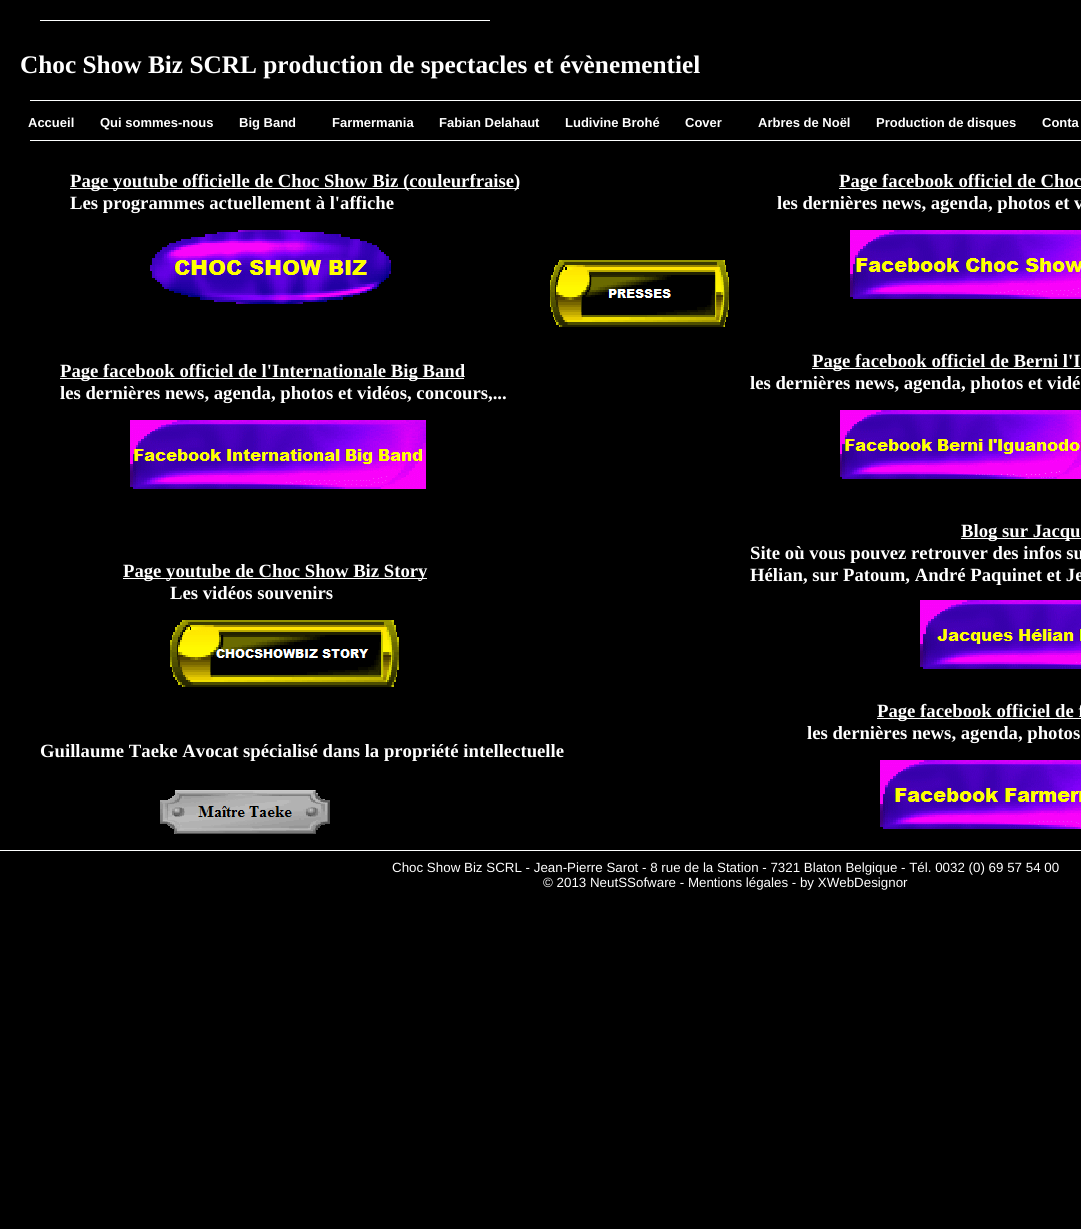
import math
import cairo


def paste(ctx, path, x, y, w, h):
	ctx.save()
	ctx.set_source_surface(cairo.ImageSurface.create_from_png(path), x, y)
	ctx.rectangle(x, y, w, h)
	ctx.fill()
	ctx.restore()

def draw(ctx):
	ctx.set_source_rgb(0, 0, 0)
	ctx.paint()
	ctx.set_source_rgb(0.996, 1, 1)
	ctx.rectangle(40, 20, 450, 1)
	ctx.fill()
	ctx.select_font_face('Liberation Serif', cairo.FONT_SLANT_NORMAL, cairo.FONT_WEIGHT_BOLD)
	ctx.set_font_size(25.3)
	ctx.set_source_rgb(1, 1, 1)
	ctx.move_to(20, 73)
	ctx.show_text('Choc Show Biz SCRL production de spectacles et évènementiel')
	ctx.set_source_rgb(0.996, 1, 1)
	ctx.rectangle(30, 100, 1051, 1)
	ctx.fill()
	ctx.select_font_face('Liberation Sans', cairo.FONT_SLANT_NORMAL, cairo.FONT_WEIGHT_BOLD)
	ctx.set_font_size(13)
	ctx.set_source_rgb(1, 1, 1)
	for x, y, s in [
		(28, 127, 'Accueil'),
		(100, 127, 'Qui sommes-nous'),
		(239, 127, 'Big Band'),
		(332, 127, 'Farmermania'),
		(439, 127, 'Fabian Delahaut'),
		(565, 127, 'Ludivine Brohé'),
		(685, 127, 'Cover'),
		(758, 127, 'Arbres de Noël'),
		(876, 127, 'Production de disques'),
		(1042, 127, 'Conta'),
	]:
		ctx.move_to(x, y)
		ctx.show_text(s)
	ctx.set_source_rgb(0.996, 1, 1)
	ctx.rectangle(30, 140, 1051, 1)
	ctx.fill()
	ctx.set_source_rgb(1, 1, 1)
	ctx.rectangle(70, 188, 449, 1)
	ctx.fill()
	ctx.select_font_face('Liberation Serif', cairo.FONT_SLANT_NORMAL, cairo.FONT_WEIGHT_BOLD)
	ctx.set_font_size(18.7)
	ctx.move_to(70, 187)
	ctx.show_text('Page youtube officielle de Choc Show Biz (couleurfraise)')
	ctx.move_to(70, 209)
	ctx.show_text('Les programmes actuellement à l\'affiche')
	ctx.rectangle(839, 188, 242, 1)
	ctx.fill()
	ctx.move_to(839, 187)
	ctx.show_text('Page facebook officiel de Choc')
	ctx.move_to(777, 209)
	ctx.show_text('les dernières news, agenda, photos et v')
	paste(ctx, 'media/1.png', 150, 230, 241, 74)
	paste(ctx, 'media/2.png', 550, 260, 179, 67)
	paste(ctx, 'media/3.png', 850, 230, 231, 69)
	ctx.rectangle(60, 378, 404, 1)
	ctx.fill()
	ctx.move_to(60, 377)
	ctx.show_text('Page facebook officiel de l\'Internationale Big Band')
	ctx.move_to(60, 399)
	ctx.show_text('les dernières news, agenda, photos et vidéos, concours,...')
	ctx.rectangle(812, 368, 269, 1)
	ctx.fill()
	ctx.move_to(812, 367)
	ctx.show_text('Page facebook officiel de Berni l\'I')
	ctx.move_to(750, 389)
	ctx.show_text('les dernières news, agenda, photos et vidé')
	paste(ctx, 'media/4.png', 130, 420, 296, 69)
	paste(ctx, 'media/5.png', 840, 410, 241, 69)
	ctx.rectangle(123, 578, 304, 1)
	ctx.fill()
	ctx.move_to(123, 577)
	ctx.show_text('Page youtube de Choc Show Biz Story')
	ctx.move_to(170, 599)
	ctx.show_text('Les vidéos souvenirs')
	ctx.rectangle(961, 538, 120, 1)
	ctx.fill()
	for x, y, s in [
		(961, 537, 'Blog sur Jacqu'),
		(750, 559, 'Site où vous pouvez retrouver des infos su'),
		(750, 581, 'Hélian, sur Patoum, André Paquinet et Je'),
	]:
		ctx.move_to(x, y)
		ctx.show_text(s)
	paste(ctx, 'media/6.png', 170, 620, 229, 67)
	paste(ctx, 'media/7.png', 920, 600, 161, 69)
	ctx.rectangle(877, 718, 204, 1)
	ctx.fill()
	for x, y, s in [
		(877, 717, 'Page facebook officiel de f'),
		(807, 739, 'les dernières news, agenda, photos'),
		(40, 757, 'Guillaume Taeke Avocat spécialisé dans la propriété intellectuelle'),
	]:
		ctx.move_to(x, y)
		ctx.show_text(s)
	paste(ctx, 'media/8.png', 160, 790, 170, 44)
	paste(ctx, 'media/9.png', 880, 760, 201, 69)
	ctx.set_source_rgb(0.996, 1, 1)
	ctx.rectangle(0, 850, 1081, 1)
	ctx.fill()
	ctx.select_font_face('Liberation Sans')
	ctx.set_font_size(13.35)
	ctx.set_source_rgb(1, 1, 1)
	ctx.move_to(392, 872)
	ctx.show_text('Choc Show Biz SCRL - Jean-Pierre Sarot - 8 rue de la Station - 7321 Blaton Belgique - Tél. 0032 (0) 69 57 54 00')
	ctx.move_to(543, 887)
	ctx.show_text('© 2013 NeutSSofware - Mentions légales - by XWebDesignor')


surface = cairo.ImageSurface(cairo.FORMAT_RGB24, 1081, 1229)
ctx = cairo.Context(surface)
options = cairo.FontOptions()
options.set_hint_metrics(cairo.HINT_METRICS_OFF)
options.set_hint_style(cairo.HINT_STYLE_NONE)
ctx.set_font_options(options)
ctx.set_miter_limit(4)
draw(ctx)
surface.write_to_png('image.png')
